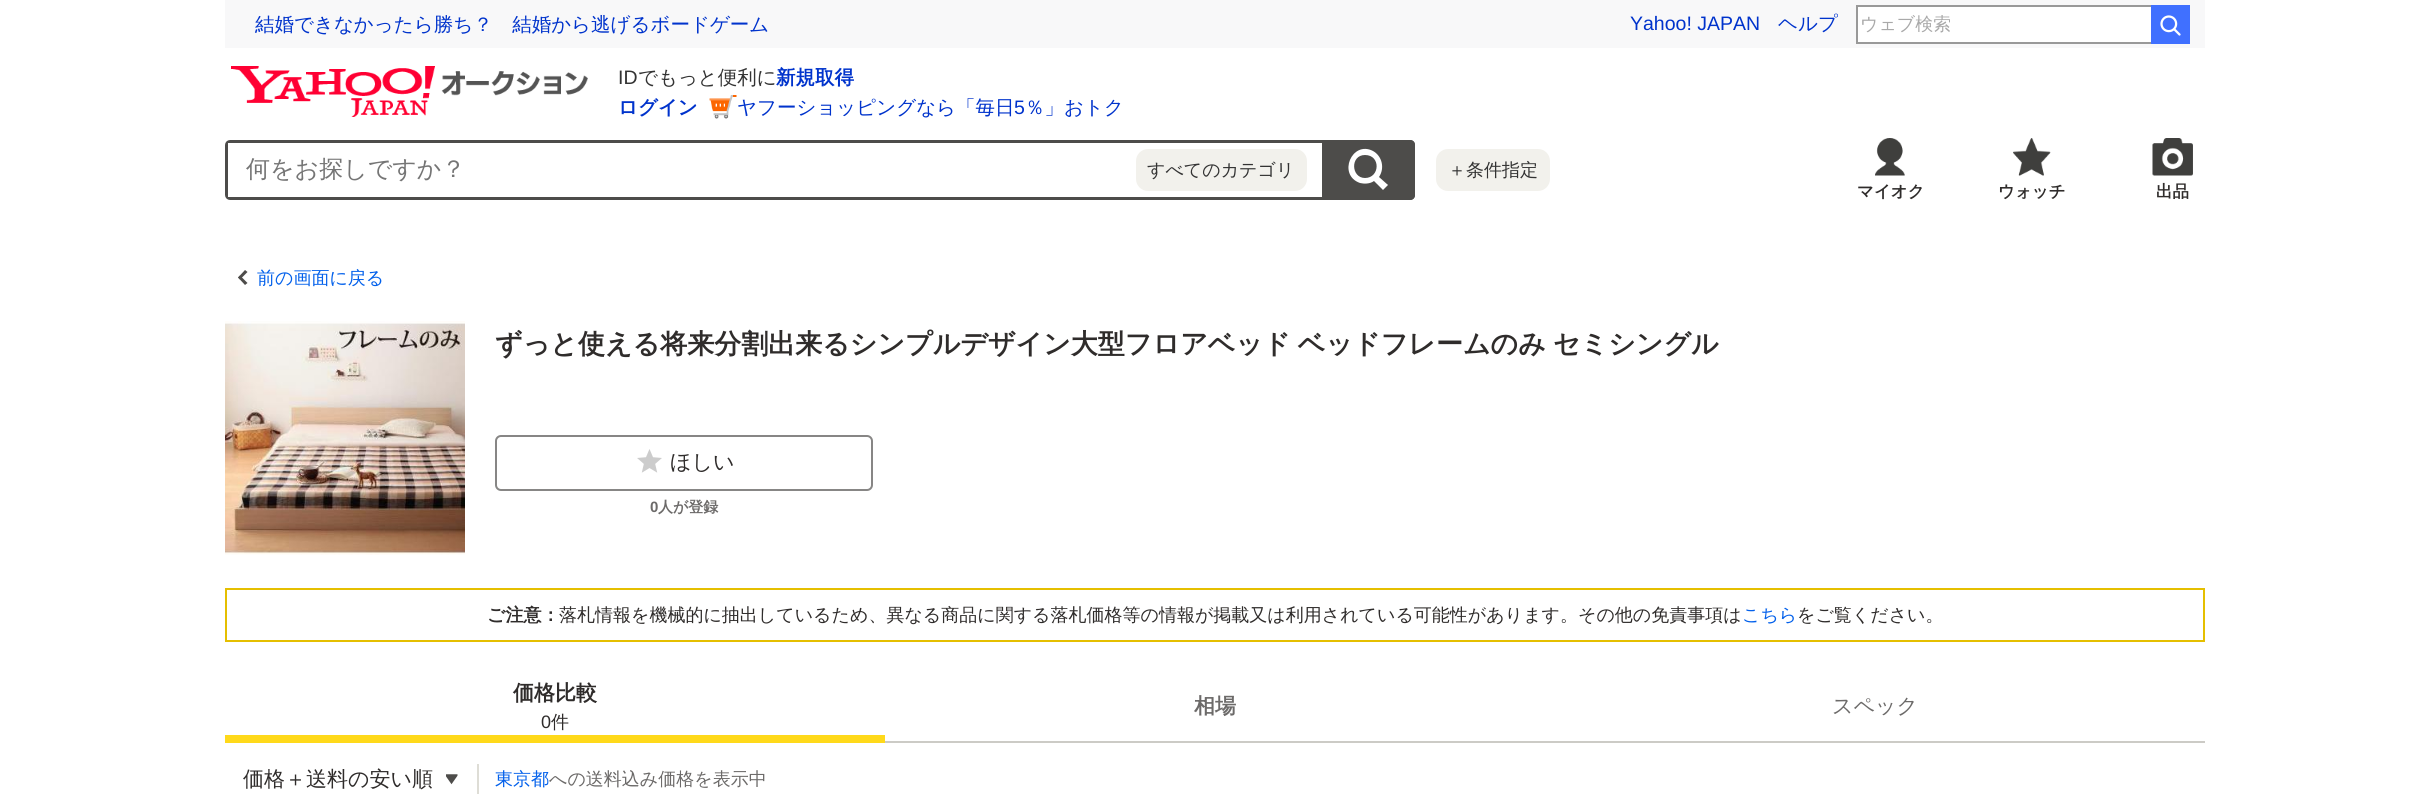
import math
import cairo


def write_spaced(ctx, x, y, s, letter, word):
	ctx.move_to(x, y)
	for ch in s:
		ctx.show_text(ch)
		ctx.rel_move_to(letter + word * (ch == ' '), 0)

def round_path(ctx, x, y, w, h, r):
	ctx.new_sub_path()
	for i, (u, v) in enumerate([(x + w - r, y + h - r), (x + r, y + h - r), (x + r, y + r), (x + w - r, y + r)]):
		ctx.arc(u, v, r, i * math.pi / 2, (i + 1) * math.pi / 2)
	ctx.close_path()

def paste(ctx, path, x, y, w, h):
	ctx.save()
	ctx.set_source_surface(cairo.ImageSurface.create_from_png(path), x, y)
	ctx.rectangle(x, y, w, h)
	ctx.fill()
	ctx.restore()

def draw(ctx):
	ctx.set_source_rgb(1, 1, 1)
	ctx.paint()
	ctx.set_source_rgb(0.969, 0.969, 0.973)
	ctx.rectangle(225, 0, 1980, 48)
	ctx.fill()
	ctx.select_font_face('WenQuanYi Zen Hei Medium')
	ctx.set_font_size(19.5)
	ctx.set_source_rgb(0, 0.2, 0.8)
	ctx.move_to(255, 31)
	ctx.show_text('結婚できなかったら勝ち？　結婚から逃げるボードゲーム')
	ctx.select_font_face('Liberation Sans')
	ctx.move_to(1630, 30)
	ctx.show_text('Yahoo! JAPAN')
	ctx.select_font_face('WenQuanYi Zen Hei Medium')
	ctx.move_to(1778, 30)
	ctx.show_text('ヘルプ')
	ctx.set_source_rgb(1, 1, 1)
	ctx.rectangle(1858, 7, 293, 35)
	ctx.fill()
	ctx.set_source_rgb(0.6, 0.6, 0.6)
	ctx.rectangle(1856, 5, 295, 2)
	ctx.rectangle(1856, 42, 295, 2)
	ctx.rectangle(1856, 5, 2, 39)
	ctx.fill()
	ctx.set_font_size(18)
	ctx.set_source_rgb(0.663, 0.663, 0.663)
	ctx.move_to(1860, 30)
	ctx.show_text('ウェブ検索')
	ctx.set_source_rgb(0.251, 0.439, 1)
	ctx.rectangle(2151, 5, 39, 39)
	ctx.fill()
	paste(ctx, 'media/1.png', 2160, 15, 21, 21)
	paste(ctx, 'media/2.png', 231, 66, 357, 51)
	ctx.select_font_face('Liberation Sans')
	ctx.set_font_size(19.5)
	ctx.set_source_rgb(0.2, 0.2, 0.2)
	ctx.move_to(618, 84)
	ctx.show_text('ID')
	ctx.select_font_face('WenQuanYi Zen Hei Medium')
	ctx.move_to(638, 84)
	ctx.show_text('でもっと便利に')
	ctx.select_font_face('WenQuanYi Zen Hei', cairo.FONT_SLANT_NORMAL, cairo.FONT_WEIGHT_BOLD)
	ctx.set_source_rgb(0, 0.2, 0.8)
	ctx.move_to(776, 84)
	ctx.show_text('新規取得')
	ctx.move_to(618, 114)
	ctx.show_text('ログイン')
	paste(ctx, 'media/3.png', 709, 95, 28, 24)
	ctx.select_font_face('WenQuanYi Zen Hei Medium')
	ctx.move_to(737, 114)
	ctx.show_text('ヤフーショッピングなら「毎日')
	ctx.select_font_face('Liberation Sans')
	ctx.move_to(1014, 114)
	ctx.show_text('5')
	ctx.select_font_face('WenQuanYi Zen Hei Medium')
	ctx.move_to(1025, 114)
	ctx.show_text('％」おトク')
	round_path(ctx, 226.5, 141.5, 1187, 57, 3.5)
	ctx.set_source_rgb(0.302, 0.298, 0.29)
	ctx.set_line_width(3)
	ctx.stroke()
	ctx.set_source_rgb(1, 1, 1)
	ctx.rectangle(228, 143, 2, 54)
	ctx.fill()
	ctx.set_font_size(24)
	ctx.set_source_rgb(0.459, 0.459, 0.459)
	ctx.move_to(246, 177)
	ctx.show_text('何をお探しですか？')
	ctx.set_source_rgb(0.949, 0.945, 0.922)
	round_path(ctx, 1136, 149, 171, 42, 12)
	ctx.fill()
	ctx.set_font_size(18)
	ctx.set_source_rgb(0.2, 0.2, 0.2)
	ctx.move_to(1147, 176)
	ctx.show_text('すべてのカテゴリ')
	ctx.set_source_rgb(0.302, 0.298, 0.29)
	ctx.new_path()
	ctx.move_to(1322, 140)
	ctx.line_to(1410, 140)
	ctx.curve_to(1413, 140, 1415, 142, 1415, 145)
	ctx.line_to(1415, 195)
	ctx.curve_to(1415, 198, 1413, 200, 1410, 200)
	ctx.line_to(1322, 200)
	ctx.close_path()
	ctx.fill()
	ctx.set_source_rgb(1, 1, 1)
	ctx.new_path()
	ctx.move_to(1388, 185)
	ctx.line_to(1379, 177)
	ctx.curve_to(1385, 168, 1382, 156, 1373, 151)
	ctx.curve_to(1352, 140, 1337, 175, 1360, 183)
	ctx.curve_to(1364, 184, 1370, 184, 1374, 181)
	ctx.line_to(1383, 190)
	ctx.close_path()
	ctx.move_to(1365, 178)
	ctx.curve_to(1351, 178, 1350, 155, 1365, 155)
	ctx.curve_to(1381, 155, 1380, 178, 1365, 178)
	ctx.close_path()
	ctx.fill()
	ctx.set_source_rgb(0.949, 0.945, 0.922)
	round_path(ctx, 1436, 149, 114, 42, 12)
	ctx.fill()
	ctx.set_source_rgb(0.2, 0.2, 0.2)
	ctx.move_to(1448, 176)
	ctx.show_text('＋条件指定')
	paste(ctx, 'media/4.png', 1875, 138, 30, 38)
	ctx.select_font_face('WenQuanYi Zen Hei', cairo.FONT_SLANT_NORMAL, cairo.FONT_WEIGHT_BOLD)
	ctx.set_font_size(16.5)
	ctx.set_source_rgb(0.184, 0.173, 0.169)
	ctx.move_to(1857, 197)
	ctx.show_text('マイオク')
	paste(ctx, 'media/5.png', 2013, 138, 38, 38)
	ctx.move_to(1998, 197)
	ctx.show_text('ウォッチ')
	paste(ctx, 'media/6.png', 2152, 138, 41, 38)
	ctx.move_to(2156, 197)
	ctx.show_text('出品')
	ctx.set_source_rgb(0.302, 0.298, 0.29)
	ctx.new_path()
	ctx.move_to(245, 285)
	ctx.line_to(238, 277.5)
	ctx.line_to(240, 275.5)
	ctx.line_to(247.5, 283)
	ctx.close_path()
	ctx.fill()
	ctx.new_path()
	ctx.move_to(240, 279.5)
	ctx.line_to(238, 277.5)
	ctx.line_to(245, 270)
	ctx.line_to(247.5, 272)
	ctx.close_path()
	ctx.fill()
	ctx.select_font_face('WenQuanYi Zen Hei Medium')
	ctx.set_font_size(18)
	ctx.set_source_rgb(0.008, 0.376, 0.918)
	ctx.move_to(257, 284)
	ctx.show_text('前の画面に戻る')
	paste(ctx, 'media/7.png', 225, 321, 240, 234)
	ctx.select_font_face('WenQuanYi Zen Hei', cairo.FONT_SLANT_NORMAL, cairo.FONT_WEIGHT_BOLD)
	ctx.set_font_size(27)
	ctx.set_source_rgb(0.184, 0.173, 0.169)
	write_spaced(ctx, 495, 353, 'ずっと使える将来分割出来るシンプルデザイン大型フロアベッド ベッドフレームのみ セミシングル', 0, -1)
	round_path(ctx, 496, 436, 376, 54, 5)
	ctx.set_source_rgb(0.529, 0.525, 0.522)
	ctx.set_line_width(2)
	ctx.stroke()
	paste(ctx, 'media/8.png', 637, 449, 25, 24)
	ctx.select_font_face('WenQuanYi Zen Hei Medium')
	ctx.set_font_size(21)
	ctx.set_source_rgb(0.184, 0.173, 0.169)
	ctx.move_to(670, 469)
	ctx.show_text('ほしい')
	ctx.select_font_face('Liberation Sans', cairo.FONT_SLANT_NORMAL, cairo.FONT_WEIGHT_BOLD)
	ctx.set_font_size(15)
	ctx.set_source_rgb(0.424, 0.416, 0.412)
	ctx.move_to(650, 512)
	ctx.show_text('0')
	ctx.select_font_face('WenQuanYi Zen Hei', cairo.FONT_SLANT_NORMAL, cairo.FONT_WEIGHT_BOLD)
	ctx.move_to(658, 512)
	ctx.show_text('人が登録')
	ctx.rectangle(226, 589, 1978, 52)
	ctx.set_source_rgb(0.898, 0.749, 0)
	ctx.stroke()
	ctx.set_font_size(18)
	ctx.set_source_rgb(0.184, 0.173, 0.169)
	ctx.move_to(487, 621)
	ctx.show_text('ご注意：')
	ctx.select_font_face('WenQuanYi Zen Hei Medium')
	ctx.move_to(559, 621)
	ctx.show_text('落札情報を機械的に抽出しているため、異なる商品に関する落札価格等の情報が掲載又は利用されている可能性があります。その他の免責事項は')
	ctx.set_source_rgb(0.008, 0.376, 0.918)
	ctx.move_to(1742, 621)
	ctx.show_text('こちら')
	ctx.set_source_rgb(0.184, 0.173, 0.169)
	ctx.move_to(1797, 621)
	ctx.show_text('をご覧ください。')
	ctx.set_source_rgb(0.8, 0.796, 0.776)
	ctx.rectangle(885, 741, 1320, 2)
	ctx.fill()
	ctx.select_font_face('WenQuanYi Zen Hei', cairo.FONT_SLANT_NORMAL, cairo.FONT_WEIGHT_BOLD)
	ctx.set_font_size(21)
	ctx.set_source_rgb(0.184, 0.173, 0.169)
	ctx.move_to(513, 700)
	ctx.show_text('価格比較')
	ctx.select_font_face('Liberation Sans')
	ctx.set_font_size(18)
	ctx.move_to(541, 728)
	ctx.show_text('0')
	ctx.select_font_face('WenQuanYi Zen Hei Medium')
	ctx.move_to(551, 728)
	ctx.show_text('件')
	ctx.set_source_rgb(1, 0.851, 0.102)
	ctx.rectangle(225, 735, 660, 8)
	ctx.fill()
	ctx.select_font_face('WenQuanYi Zen Hei', cairo.FONT_SLANT_NORMAL, cairo.FONT_WEIGHT_BOLD)
	ctx.set_font_size(21)
	ctx.set_source_rgb(0.424, 0.416, 0.412)
	ctx.move_to(1194, 713)
	ctx.show_text('相場')
	ctx.select_font_face('WenQuanYi Zen Hei Medium')
	ctx.move_to(1832, 713)
	ctx.show_text('スペック')
	ctx.set_source_rgb(0.184, 0.173, 0.169)
	ctx.move_to(243, 786)
	ctx.show_text('価格＋送料の安い順')
	paste(ctx, 'media/9.png', 446, 774, 12, 11)
	ctx.set_source_rgb(0.871, 0.867, 0.839)
	ctx.rectangle(477, 764, 2, 30)
	ctx.fill()
	ctx.set_font_size(18)
	ctx.set_source_rgb(0.008, 0.376, 0.918)
	ctx.move_to(495, 785)
	ctx.show_text('東京都')
	ctx.set_source_rgb(0.424, 0.416, 0.412)
	ctx.move_to(549, 785)
	ctx.show_text('への送料込み価格を表示中')


surface = cairo.ImageSurface(cairo.FORMAT_RGB24, 2429, 808)
ctx = cairo.Context(surface)
options = cairo.FontOptions()
options.set_hint_metrics(cairo.HINT_METRICS_OFF)
options.set_hint_style(cairo.HINT_STYLE_NONE)
ctx.set_font_options(options)
ctx.set_miter_limit(4)
draw(ctx)
surface.write_to_png('image.png')
